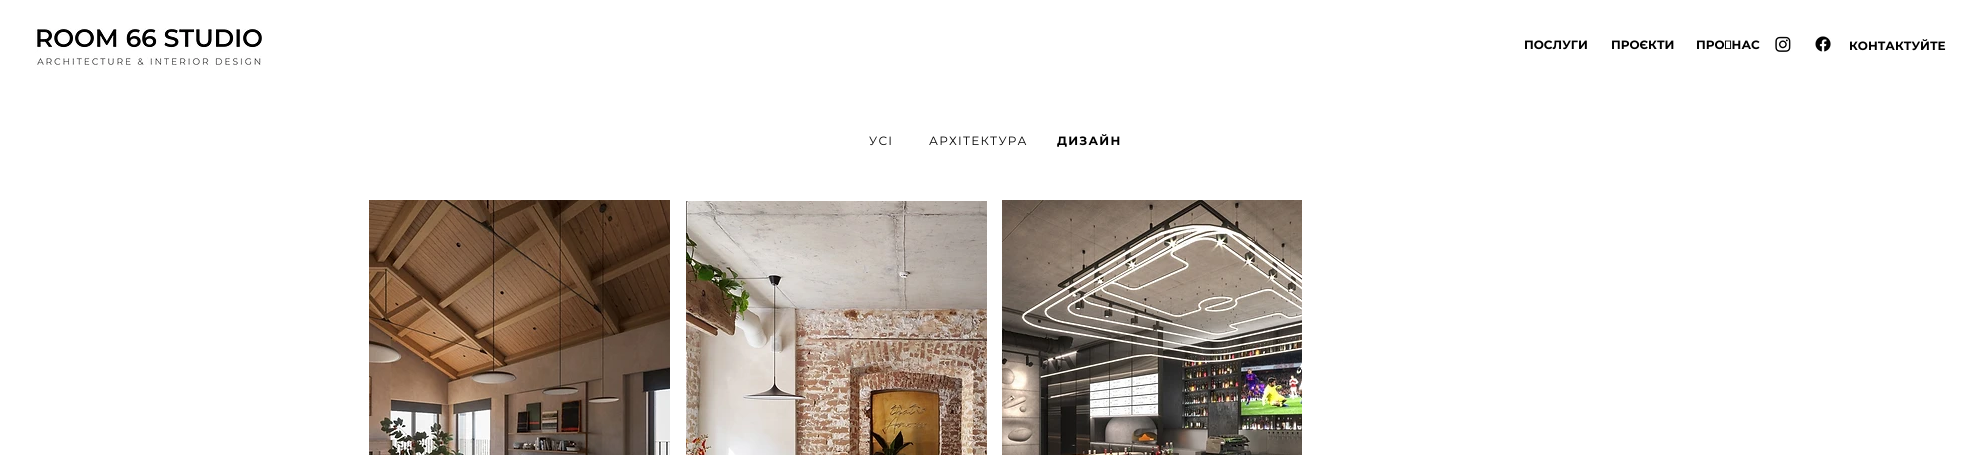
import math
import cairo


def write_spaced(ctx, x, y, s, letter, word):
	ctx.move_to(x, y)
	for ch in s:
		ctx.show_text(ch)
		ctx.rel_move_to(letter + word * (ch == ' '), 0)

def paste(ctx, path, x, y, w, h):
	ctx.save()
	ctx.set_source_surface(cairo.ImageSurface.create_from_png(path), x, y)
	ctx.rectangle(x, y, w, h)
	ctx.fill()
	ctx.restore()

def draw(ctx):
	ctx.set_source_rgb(1, 1, 1)
	ctx.paint()
	paste(ctx, 'media/1.png', 35, 28, 227, 40)
	ctx.select_font_face('Montserrat', cairo.FONT_SLANT_NORMAL, cairo.FONT_WEIGHT_BOLD)
	ctx.set_font_size(12)
	ctx.set_source_rgb(0, 0, 0)
	for x, y, s in [
		(1524, 49, 'ПОСЛУГИ'),
		(1611, 49, 'ПРОЄКТИ'),
		(1696, 49, 'ПРО НАС'),
	]:
		ctx.move_to(x, y)
		ctx.show_text(s)
	paste(ctx, 'media/2.png', 1775, 36, 16, 16)
	paste(ctx, 'media/3.png', 1815, 36, 16, 16)
	ctx.move_to(1849, 50)
	ctx.show_text('КОНТАКТУЙТЕ')
	ctx.select_font_face('Montserrat')
	write_spaced(ctx, 869, 145, 'УСІ', 1.25, 0)
	write_spaced(ctx, 929, 145, 'АРХІТЕКТУРА', 1.25, 0)
	ctx.select_font_face('Montserrat', cairo.FONT_SLANT_NORMAL, cairo.FONT_WEIGHT_BOLD)
	write_spaced(ctx, 1057, 145, 'ДИЗАЙН', 1.25, 0)
	paste(ctx, 'media/4.png', 369, 200, 301, 255)
	paste(ctx, 'media/5.png', 686, 201, 301, 254)
	paste(ctx, 'media/6.png', 1002, 200, 300, 255)


surface = cairo.ImageSurface(cairo.FORMAT_RGB24, 1987, 455)
ctx = cairo.Context(surface)
options = cairo.FontOptions()
options.set_hint_metrics(cairo.HINT_METRICS_OFF)
options.set_hint_style(cairo.HINT_STYLE_NONE)
ctx.set_font_options(options)
ctx.set_miter_limit(4)
draw(ctx)
surface.write_to_png('image.png')
